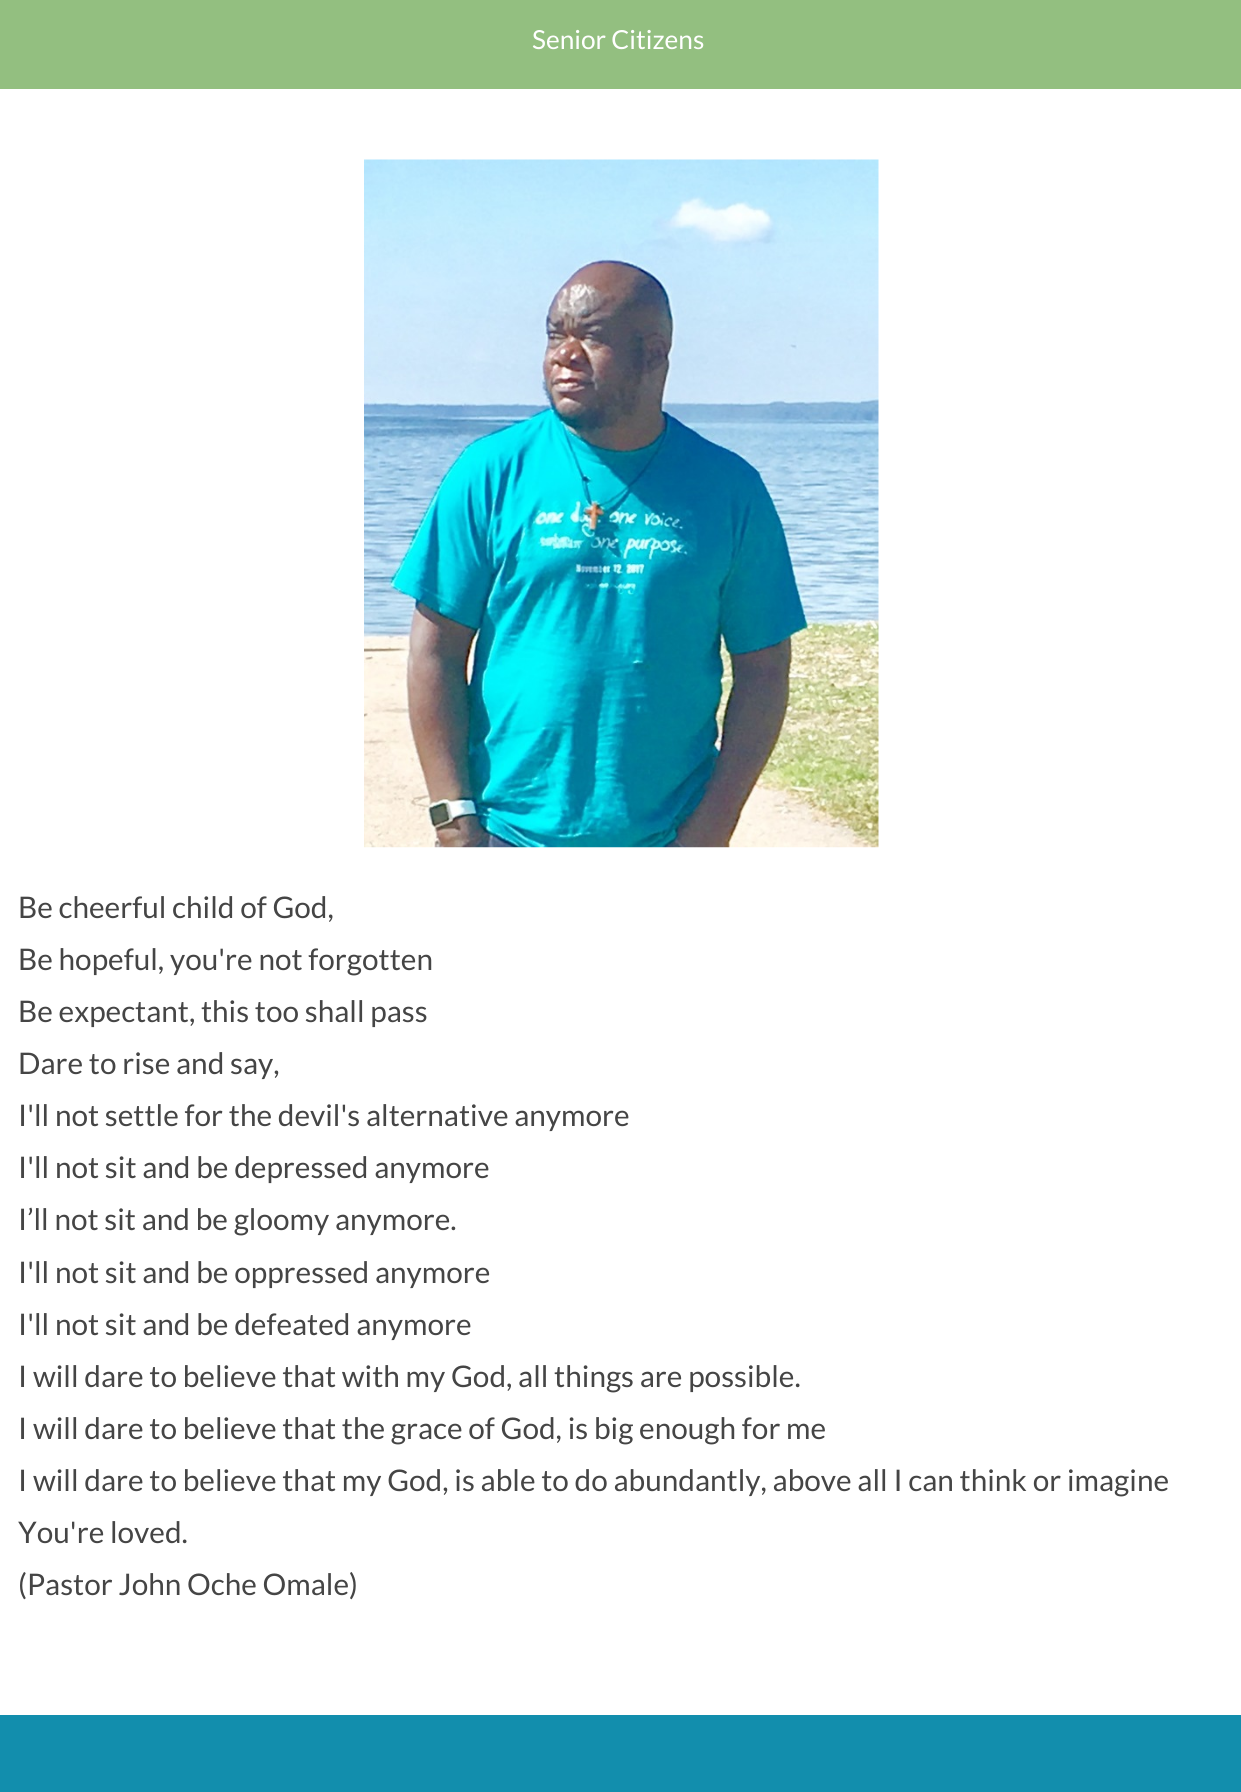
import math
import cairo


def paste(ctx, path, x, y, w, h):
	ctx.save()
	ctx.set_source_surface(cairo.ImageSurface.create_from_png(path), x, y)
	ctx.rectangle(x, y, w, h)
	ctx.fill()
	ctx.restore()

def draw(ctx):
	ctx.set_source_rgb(1, 1, 1)
	ctx.paint()
	ctx.set_source_rgb(0.576, 0.749, 0.502)
	ctx.rectangle(0, 0, 1241, 89)
	ctx.fill()
	ctx.select_font_face('Lato')
	ctx.set_font_size(26.25)
	ctx.set_source_rgb(1, 1, 1)
	ctx.move_to(532, 49)
	ctx.show_text('Senior Citizens')
	paste(ctx, 'media/1.png', 364, 159, 515, 689)
	ctx.set_font_size(29.75)
	ctx.set_source_rgb(0.271, 0.271, 0.271)
	for x, y, s in [
		(18, 918, 'Be cheerful child of God,'),
		(18, 970, 'Be hopeful, you\'re not forgotten'),
		(18, 1022, 'Be expectant, this too shall pass'),
		(18, 1074, 'Dare to rise and say,'),
		(18, 1126, 'I\'ll not settle for the devil\'s alternative anymore'),
		(18, 1178, 'I\'ll not sit and be depressed anymore'),
		(18, 1230, 'I’ll not sit and be gloomy anymore.'),
		(18, 1283, 'I\'ll not sit and be oppressed anymore'),
		(18, 1335, 'I\'ll not sit and be defeated anymore'),
		(18, 1387, 'I will dare to believe that with my God, all things are possible.'),
		(18, 1439, 'I will dare to believe that the grace of God, is big enough for me'),
		(18, 1491, 'I will dare to believe that my God, is able to do abundantly, above all I can think or imagine'),
		(18, 1543, 'You\'re loved.'),
		(18, 1595, '(Pastor John Oche Omale)'),
	]:
		ctx.move_to(x, y)
		ctx.show_text(s)
	ctx.set_source_rgb(0.071, 0.557, 0.678)
	ctx.rectangle(0, 1715, 1241, 77)
	ctx.fill()


surface = cairo.ImageSurface(cairo.FORMAT_RGB24, 1241, 1792)
ctx = cairo.Context(surface)
options = cairo.FontOptions()
options.set_hint_metrics(cairo.HINT_METRICS_OFF)
options.set_hint_style(cairo.HINT_STYLE_NONE)
ctx.set_font_options(options)
ctx.set_miter_limit(4)
draw(ctx)
surface.write_to_png('image.png')
